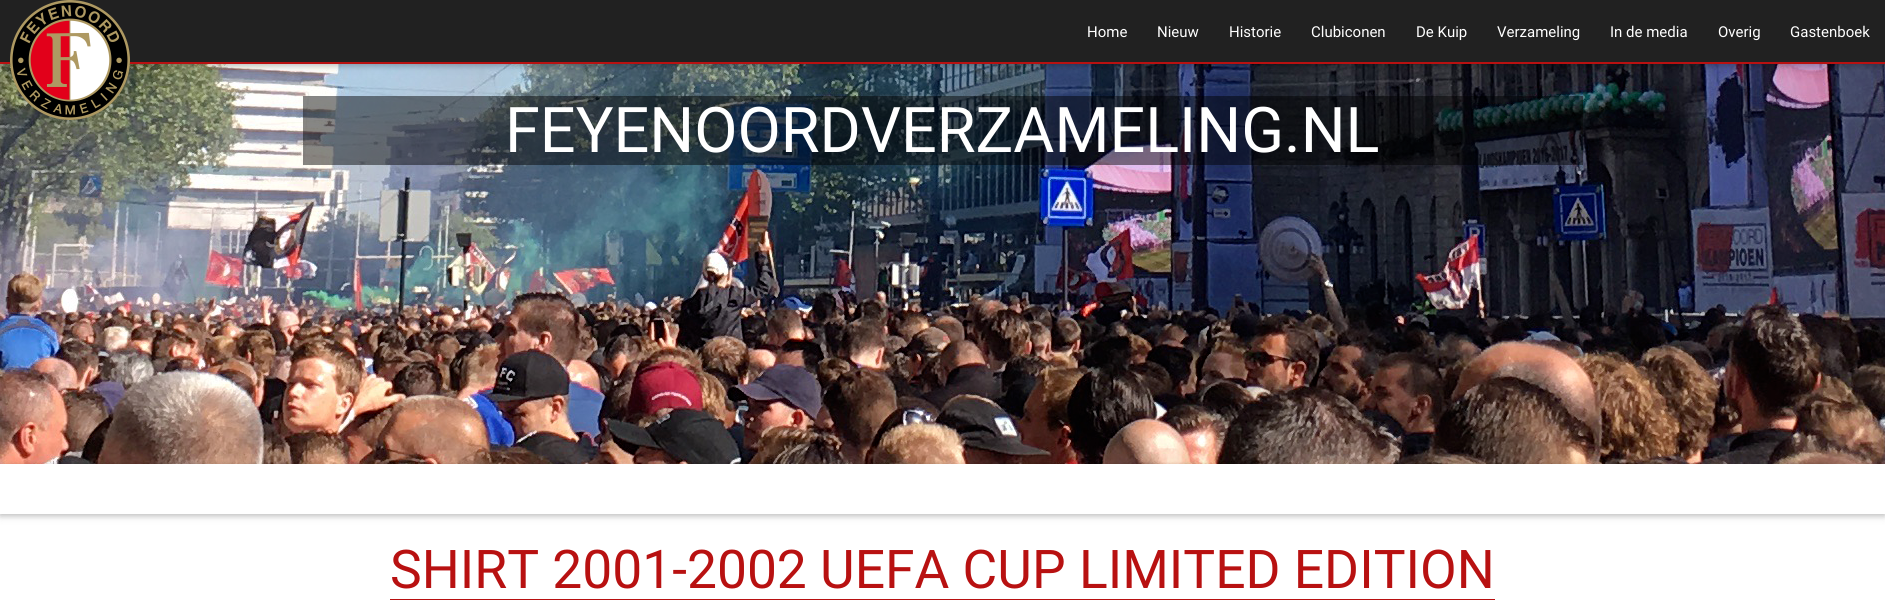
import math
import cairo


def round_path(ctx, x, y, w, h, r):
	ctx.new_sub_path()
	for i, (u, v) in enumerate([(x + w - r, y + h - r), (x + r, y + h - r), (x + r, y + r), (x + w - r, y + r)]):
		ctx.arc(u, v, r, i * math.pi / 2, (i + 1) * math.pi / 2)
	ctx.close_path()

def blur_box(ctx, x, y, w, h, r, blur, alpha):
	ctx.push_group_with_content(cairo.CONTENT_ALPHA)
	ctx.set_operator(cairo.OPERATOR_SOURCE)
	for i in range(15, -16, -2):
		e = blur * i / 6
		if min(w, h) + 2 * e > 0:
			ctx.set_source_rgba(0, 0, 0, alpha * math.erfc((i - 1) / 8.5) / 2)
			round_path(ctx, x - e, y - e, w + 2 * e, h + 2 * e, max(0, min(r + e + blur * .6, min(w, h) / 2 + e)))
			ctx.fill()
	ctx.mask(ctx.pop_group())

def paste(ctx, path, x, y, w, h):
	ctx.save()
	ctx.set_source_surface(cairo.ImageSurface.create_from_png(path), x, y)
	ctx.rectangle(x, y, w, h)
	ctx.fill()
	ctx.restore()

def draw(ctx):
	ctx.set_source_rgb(1, 1, 1)
	ctx.paint()
	paste(ctx, 'media/2.png', 0, 64, 1885, 400)
	ctx.set_source_rgb(0, 0, 0)
	blur_box(ctx, 0, 2, 1885, 64, 0, 5, 0.12)
	blur_box(ctx, 0, 2, 1885, 64, 0, 2.5, 0.16)
	ctx.set_source_rgb(0.129, 0.129, 0.129)
	ctx.rectangle(0, 0, 1885, 62)
	ctx.fill()
	ctx.set_source_rgb(0.722, 0.067, 0.067)
	ctx.rectangle(0, 62, 1885, 2)
	ctx.fill()
	paste(ctx, 'media/1.png', 10, 0, 120, 120)
	ctx.select_font_face('Roboto')
	ctx.set_font_size(15)
	ctx.set_source_rgb(1, 1, 1)
	for x, y, s in [
		(1087, 37, 'Home'),
		(1157, 37, 'Nieuw'),
		(1229, 37, 'Historie'),
		(1311, 37, 'Clubiconen'),
		(1416, 37, 'De Kuip'),
		(1497, 37, 'Verzameling'),
		(1610, 37, 'In de media'),
		(1718, 37, 'Overig'),
		(1790, 37, 'Gastenboek'),
	]:
		ctx.move_to(x, y)
		ctx.show_text(s)
	ctx.set_source_rgba(0, 0, 0, 0.47)
	ctx.rectangle(303, 96, 1280, 69)
	ctx.fill()
	ctx.set_font_size(63)
	ctx.set_source_rgb(1, 1, 1)
	ctx.move_to(505, 152)
	ctx.show_text('FEYENOORDVERZAMELING.NL')
	ctx.save()
	ctx.set_fill_rule(cairo.FILL_RULE_EVEN_ODD)
	ctx.new_path()
	ctx.move_to(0, 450)
	ctx.line_to(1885, 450)
	ctx.line_to(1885, 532)
	ctx.line_to(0, 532)
	ctx.close_path()
	ctx.move_to(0, 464)
	ctx.line_to(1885, 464)
	ctx.line_to(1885, 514)
	ctx.line_to(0, 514)
	ctx.close_path()
	ctx.clip()
	ctx.set_source_rgb(0, 0, 0)
	blur_box(ctx, 0, 466, 1885, 50, 0, 5, 0.12)
	ctx.restore()
	ctx.save()
	ctx.set_fill_rule(cairo.FILL_RULE_EVEN_ODD)
	ctx.new_path()
	ctx.move_to(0, 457)
	ctx.line_to(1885, 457)
	ctx.line_to(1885, 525)
	ctx.line_to(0, 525)
	ctx.close_path()
	ctx.move_to(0, 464)
	ctx.line_to(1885, 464)
	ctx.line_to(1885, 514)
	ctx.line_to(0, 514)
	ctx.close_path()
	ctx.clip()
	ctx.set_source_rgb(0, 0, 0)
	blur_box(ctx, 0, 466, 1885, 50, 0, 2.5, 0.16)
	ctx.restore()
	ctx.set_source_rgb(0.722, 0.067, 0.067)
	ctx.rectangle(390, 599, 1105, 1)
	ctx.fill()
	ctx.set_font_size(53.4)
	ctx.move_to(390, 588)
	ctx.show_text('SHIRT 2001-2002 UEFA CUP LIMITED EDITION')


surface = cairo.ImageSurface(cairo.FORMAT_RGB24, 1885, 608)
ctx = cairo.Context(surface)
options = cairo.FontOptions()
options.set_hint_metrics(cairo.HINT_METRICS_OFF)
options.set_hint_style(cairo.HINT_STYLE_NONE)
ctx.set_font_options(options)
ctx.set_miter_limit(4)
draw(ctx)
surface.write_to_png('image.png')
